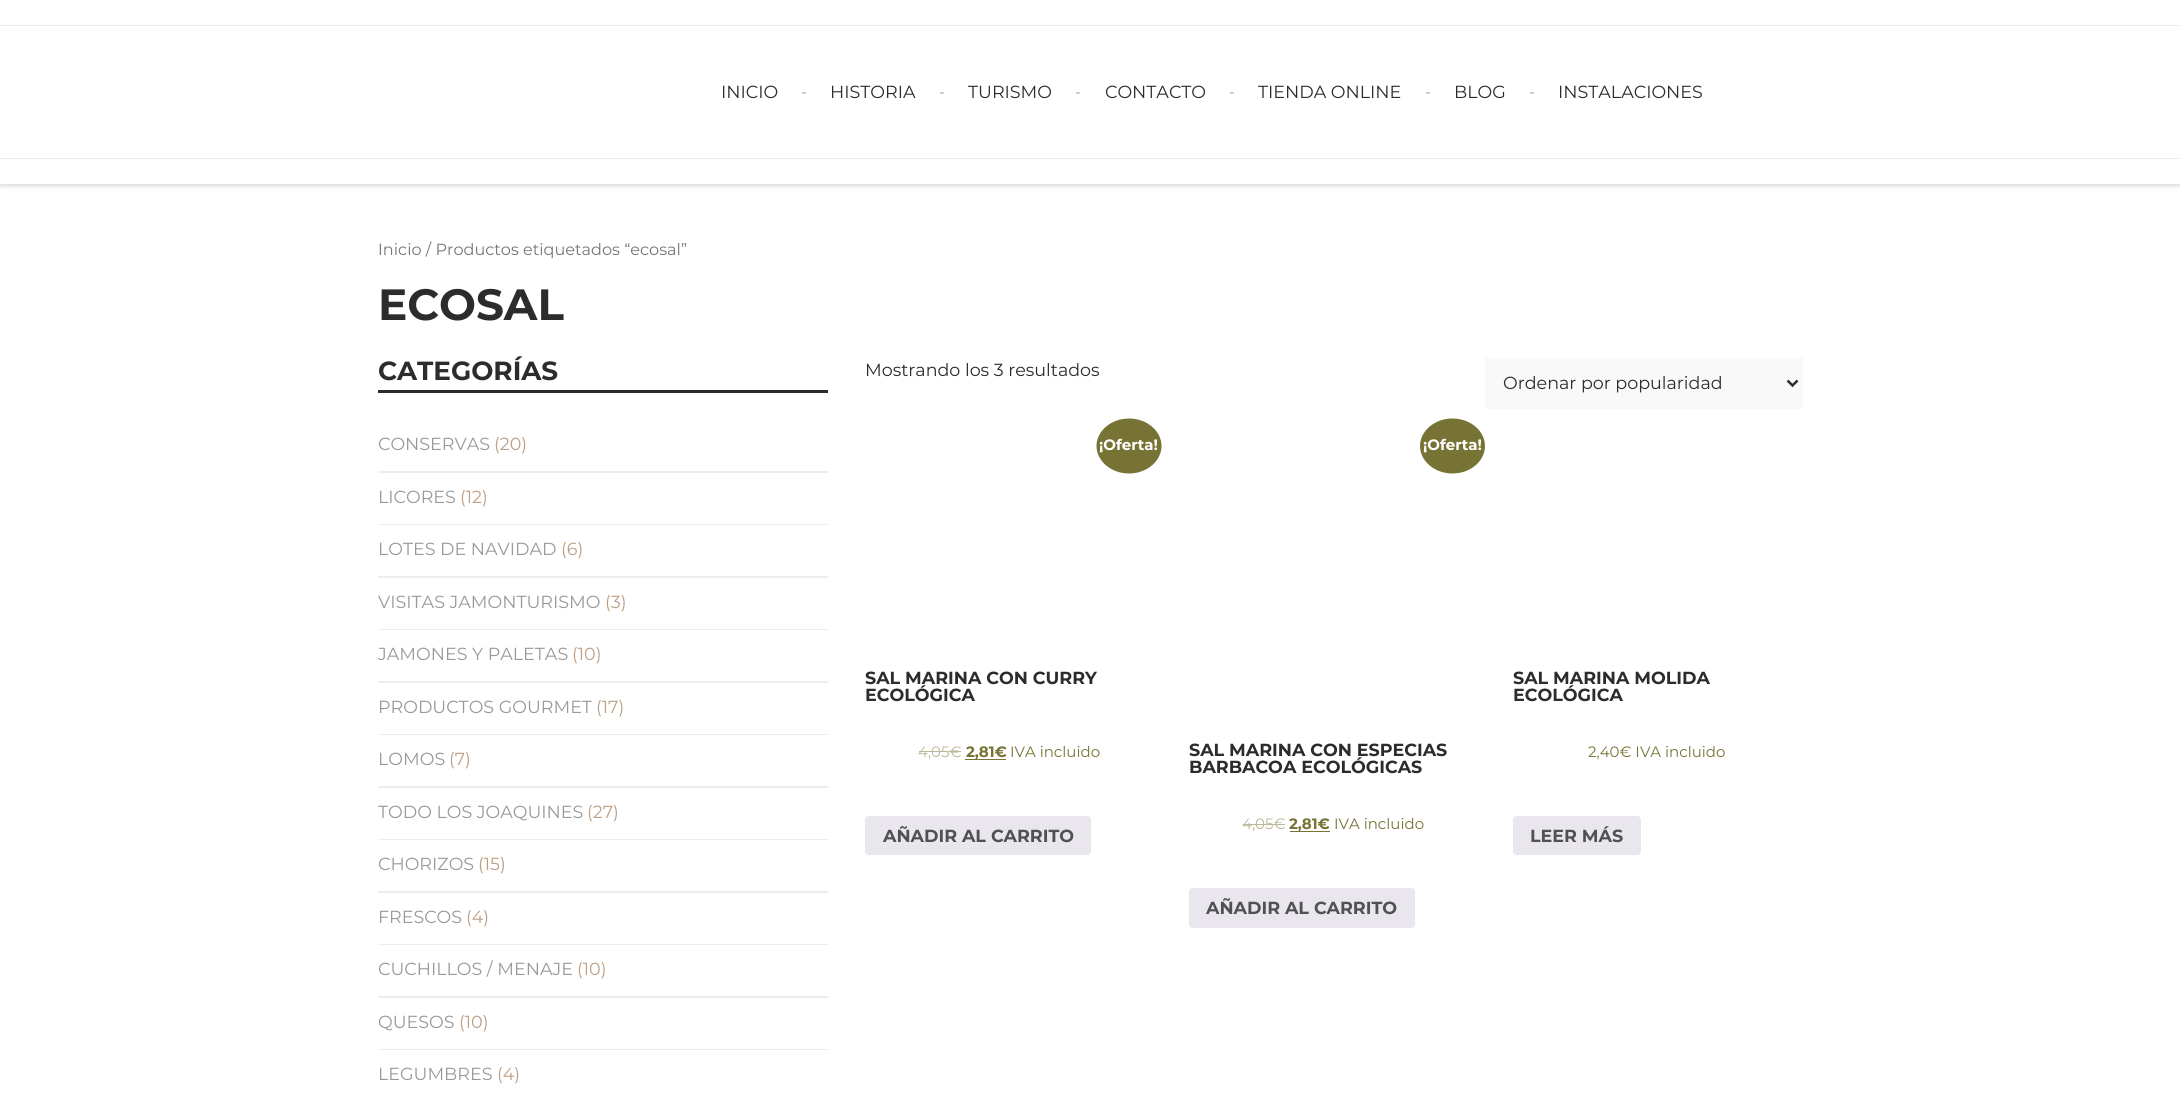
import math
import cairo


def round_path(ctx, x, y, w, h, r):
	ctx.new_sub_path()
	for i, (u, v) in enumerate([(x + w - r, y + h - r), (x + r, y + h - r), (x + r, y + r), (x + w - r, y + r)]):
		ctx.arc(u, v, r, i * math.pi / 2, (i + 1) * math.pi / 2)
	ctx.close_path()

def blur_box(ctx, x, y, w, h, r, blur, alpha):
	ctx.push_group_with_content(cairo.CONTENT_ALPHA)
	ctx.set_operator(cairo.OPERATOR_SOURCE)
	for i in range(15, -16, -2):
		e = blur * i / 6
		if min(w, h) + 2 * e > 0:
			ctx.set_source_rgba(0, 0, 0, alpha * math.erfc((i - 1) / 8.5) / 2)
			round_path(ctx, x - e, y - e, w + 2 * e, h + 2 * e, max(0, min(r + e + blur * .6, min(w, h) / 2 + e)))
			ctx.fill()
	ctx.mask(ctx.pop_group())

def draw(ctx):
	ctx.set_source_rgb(1, 1, 1)
	ctx.paint()
	ctx.set_source_rgb(0, 0, 0)
	blur_box(ctx, 0, 1, 2180, 184, 0, 3, 0.2)
	ctx.set_source_rgb(1, 1, 1)
	ctx.rectangle(0, 26, 2180, 132)
	ctx.fill()
	ctx.set_source_rgb(0.929, 0.929, 0.929)
	ctx.rectangle(0, 158, 2180, 1)
	ctx.fill()
	ctx.set_source_rgb(1, 1, 1)
	ctx.rectangle(0, 159, 2180, 25)
	ctx.fill()
	ctx.set_source_rgb(0.929, 0.929, 0.929)
	ctx.rectangle(0, 25, 2180, 1)
	ctx.fill()
	ctx.set_source_rgb(1, 1, 1)
	ctx.rectangle(0, 0, 2180, 25)
	ctx.fill()
	ctx.select_font_face('Montserrat')
	ctx.set_font_size(17.5)
	ctx.set_source_rgb(0.173, 0.173, 0.173)
	ctx.move_to(721, 98)
	ctx.show_text('INICIO')
	ctx.set_font_size(15)
	ctx.set_source_rgb(0.573, 0.573, 0.573)
	ctx.move_to(801, 97)
	ctx.show_text('-')
	ctx.set_font_size(17.5)
	ctx.set_source_rgb(0.173, 0.173, 0.173)
	ctx.move_to(830, 98)
	ctx.show_text('HISTORIA')
	ctx.set_font_size(15)
	ctx.set_source_rgb(0.573, 0.573, 0.573)
	ctx.move_to(939, 97)
	ctx.show_text('-')
	ctx.set_font_size(17.5)
	ctx.set_source_rgb(0.173, 0.173, 0.173)
	ctx.move_to(968, 98)
	ctx.show_text('TURISMO')
	ctx.set_font_size(15)
	ctx.set_source_rgb(0.573, 0.573, 0.573)
	ctx.move_to(1075, 97)
	ctx.show_text('-')
	ctx.set_font_size(17.5)
	ctx.set_source_rgb(0.173, 0.173, 0.173)
	ctx.move_to(1105, 98)
	ctx.show_text('CONTACTO')
	ctx.set_font_size(15)
	ctx.set_source_rgb(0.573, 0.573, 0.573)
	ctx.move_to(1229, 97)
	ctx.show_text('-')
	ctx.set_font_size(17.5)
	ctx.set_source_rgb(0.173, 0.173, 0.173)
	ctx.move_to(1258, 98)
	ctx.show_text('TIENDA ONLINE')
	ctx.set_font_size(15)
	ctx.set_source_rgb(0.573, 0.573, 0.573)
	ctx.move_to(1425, 97)
	ctx.show_text('-')
	ctx.set_font_size(17.5)
	ctx.set_source_rgb(0.173, 0.173, 0.173)
	ctx.move_to(1454, 98)
	ctx.show_text('BLOG')
	ctx.set_font_size(15)
	ctx.set_source_rgb(0.573, 0.573, 0.573)
	ctx.move_to(1529, 97)
	ctx.show_text('-')
	ctx.set_font_size(17.5)
	ctx.set_source_rgb(0.173, 0.173, 0.173)
	ctx.move_to(1558, 98)
	ctx.show_text('INSTALACIONES')
	ctx.set_font_size(16.1)
	ctx.set_source_rgb(0.463, 0.463, 0.463)
	ctx.move_to(378, 255)
	ctx.show_text('Inicio / Productos etiquetados “ecosal”')
	ctx.select_font_face('Montserrat', cairo.FONT_SLANT_NORMAL, cairo.FONT_WEIGHT_BOLD)
	ctx.set_font_size(43.75)
	ctx.set_source_rgb(0.173, 0.173, 0.173)
	ctx.move_to(378, 320)
	ctx.show_text('ECOSAL')
	ctx.rectangle(378, 390, 450, 3)
	ctx.fill()
	ctx.set_font_size(26.25)
	ctx.move_to(378, 380)
	ctx.show_text('CATEGORÍAS')
	ctx.set_source_rgb(0.929, 0.929, 0.929)
	ctx.new_path()
	ctx.move_to(378, 471)
	ctx.line_to(378, 473)
	ctx.line_to(828, 473)
	ctx.line_to(828, 420)
	ctx.line_to(828, 471)
	ctx.close_path()
	ctx.fill()
	ctx.select_font_face('Montserrat')
	ctx.set_font_size(17.5)
	ctx.set_source_rgb(0.6, 0.6, 0.6)
	ctx.move_to(378, 450)
	ctx.show_text('CONSERVAS')
	ctx.set_source_rgb(0.741, 0.624, 0.522)
	ctx.move_to(494, 450)
	ctx.show_text('(20)')
	ctx.set_source_rgb(0.929, 0.929, 0.929)
	ctx.new_path()
	ctx.move_to(378, 524)
	ctx.line_to(378, 525)
	ctx.line_to(828, 525)
	ctx.line_to(828, 473)
	ctx.line_to(828, 524)
	ctx.close_path()
	ctx.fill()
	ctx.set_source_rgb(0.6, 0.6, 0.6)
	ctx.move_to(378, 503)
	ctx.show_text('LICORES')
	ctx.set_source_rgb(0.741, 0.624, 0.522)
	ctx.move_to(460, 503)
	ctx.show_text('(12)')
	ctx.set_source_rgb(0.929, 0.929, 0.929)
	ctx.new_path()
	ctx.move_to(378, 576)
	ctx.line_to(378, 578)
	ctx.line_to(828, 578)
	ctx.line_to(828, 525)
	ctx.line_to(828, 576)
	ctx.close_path()
	ctx.fill()
	ctx.set_source_rgb(0.6, 0.6, 0.6)
	ctx.move_to(378, 555)
	ctx.show_text('LOTES DE NAVIDAD')
	ctx.set_source_rgb(0.741, 0.624, 0.522)
	ctx.move_to(561, 555)
	ctx.show_text('(6)')
	ctx.set_source_rgb(0.929, 0.929, 0.929)
	ctx.new_path()
	ctx.move_to(378, 629)
	ctx.line_to(378, 630)
	ctx.line_to(828, 630)
	ctx.line_to(828, 578)
	ctx.line_to(828, 629)
	ctx.close_path()
	ctx.fill()
	ctx.set_source_rgb(0.6, 0.6, 0.6)
	ctx.move_to(378, 608)
	ctx.show_text('VISITAS JAMONTURISMO')
	ctx.set_source_rgb(0.741, 0.624, 0.522)
	ctx.move_to(605, 608)
	ctx.show_text('(3)')
	ctx.set_source_rgb(0.929, 0.929, 0.929)
	ctx.new_path()
	ctx.move_to(378, 681)
	ctx.line_to(378, 683)
	ctx.line_to(828, 683)
	ctx.line_to(828, 630)
	ctx.line_to(828, 681)
	ctx.close_path()
	ctx.fill()
	ctx.set_source_rgb(0.6, 0.6, 0.6)
	ctx.move_to(378, 660)
	ctx.show_text('JAMONES Y PALETAS')
	ctx.set_source_rgb(0.741, 0.624, 0.522)
	ctx.move_to(572, 660)
	ctx.show_text('(10)')
	ctx.set_source_rgb(0.929, 0.929, 0.929)
	ctx.new_path()
	ctx.move_to(378, 734)
	ctx.line_to(378, 735)
	ctx.line_to(828, 735)
	ctx.line_to(828, 683)
	ctx.line_to(828, 734)
	ctx.close_path()
	ctx.fill()
	ctx.set_source_rgb(0.6, 0.6, 0.6)
	ctx.move_to(378, 713)
	ctx.show_text('PRODUCTOS GOURMET')
	ctx.set_source_rgb(0.741, 0.624, 0.522)
	ctx.move_to(596, 713)
	ctx.show_text('(17)')
	ctx.set_source_rgb(0.929, 0.929, 0.929)
	ctx.new_path()
	ctx.move_to(378, 786)
	ctx.line_to(378, 788)
	ctx.line_to(828, 788)
	ctx.line_to(828, 735)
	ctx.line_to(828, 786)
	ctx.close_path()
	ctx.fill()
	ctx.set_source_rgb(0.6, 0.6, 0.6)
	ctx.move_to(378, 765)
	ctx.show_text('LOMOS')
	ctx.set_source_rgb(0.741, 0.624, 0.522)
	ctx.move_to(449, 765)
	ctx.show_text('(7)')
	ctx.set_source_rgb(0.929, 0.929, 0.929)
	ctx.new_path()
	ctx.move_to(378, 839)
	ctx.line_to(378, 840)
	ctx.line_to(828, 840)
	ctx.line_to(828, 788)
	ctx.line_to(828, 839)
	ctx.close_path()
	ctx.fill()
	ctx.set_source_rgb(0.6, 0.6, 0.6)
	ctx.move_to(378, 818)
	ctx.show_text('TODO LOS JOAQUINES')
	ctx.set_source_rgb(0.741, 0.624, 0.522)
	ctx.move_to(587, 818)
	ctx.show_text('(27)')
	ctx.set_source_rgb(0.929, 0.929, 0.929)
	ctx.new_path()
	ctx.move_to(378, 891)
	ctx.line_to(378, 893)
	ctx.line_to(828, 893)
	ctx.line_to(828, 840)
	ctx.line_to(828, 891)
	ctx.close_path()
	ctx.fill()
	ctx.set_source_rgb(0.6, 0.6, 0.6)
	ctx.move_to(378, 870)
	ctx.show_text('CHORIZOS')
	ctx.set_source_rgb(0.741, 0.624, 0.522)
	ctx.move_to(478, 870)
	ctx.show_text('(15)')
	ctx.set_source_rgb(0.929, 0.929, 0.929)
	ctx.new_path()
	ctx.move_to(378, 944)
	ctx.line_to(378, 945)
	ctx.line_to(828, 945)
	ctx.line_to(828, 893)
	ctx.line_to(828, 944)
	ctx.close_path()
	ctx.fill()
	ctx.set_source_rgb(0.6, 0.6, 0.6)
	ctx.move_to(378, 923)
	ctx.show_text('FRESCOS')
	ctx.set_source_rgb(0.741, 0.624, 0.522)
	ctx.move_to(466, 923)
	ctx.show_text('(4)')
	ctx.set_source_rgb(0.929, 0.929, 0.929)
	ctx.new_path()
	ctx.move_to(378, 996)
	ctx.line_to(378, 998)
	ctx.line_to(828, 998)
	ctx.line_to(828, 945)
	ctx.line_to(828, 996)
	ctx.close_path()
	ctx.fill()
	ctx.set_source_rgb(0.6, 0.6, 0.6)
	ctx.move_to(378, 975)
	ctx.show_text('CUCHILLOS / MENAJE')
	ctx.set_source_rgb(0.741, 0.624, 0.522)
	ctx.move_to(577, 975)
	ctx.show_text('(10)')
	ctx.set_source_rgb(0.929, 0.929, 0.929)
	ctx.new_path()
	ctx.move_to(378, 1049)
	ctx.line_to(378, 1050)
	ctx.line_to(828, 1050)
	ctx.line_to(828, 998)
	ctx.line_to(828, 1049)
	ctx.close_path()
	ctx.fill()
	ctx.set_source_rgb(0.6, 0.6, 0.6)
	ctx.move_to(378, 1028)
	ctx.show_text('QUESOS')
	ctx.set_source_rgb(0.741, 0.624, 0.522)
	ctx.move_to(459, 1028)
	ctx.show_text('(10)')
	ctx.set_source_rgb(0.6, 0.6, 0.6)
	ctx.move_to(378, 1080)
	ctx.show_text('LEGUMBRES')
	ctx.set_source_rgb(0.741, 0.624, 0.522)
	ctx.move_to(497, 1080)
	ctx.show_text('(4)')
	ctx.set_source_rgb(0.173, 0.173, 0.173)
	ctx.move_to(865, 376)
	ctx.show_text('Mostrando los 3 resultados')
	ctx.set_source_rgb(0.973, 0.973, 0.973)
	ctx.rectangle(1485, 358, 318, 51)
	ctx.fill()
	ctx.new_path()
	ctx.move_to(1787.5, 380.5)
	ctx.line_to(1792.5, 385.5)
	ctx.line_to(1797.5, 380.5)
	ctx.set_source_rgb(0.173, 0.173, 0.173)
	ctx.set_line_width(2.5)
	ctx.stroke()
	ctx.move_to(1503, 389)
	ctx.show_text('Ordenar por popularidad')
	ctx.set_source_rgb(0.467, 0.451, 0.208)
	ctx.new_path()
	ctx.move_to(1129, 418.5)
	ctx.curve_to(1147, 418.5, 1161.5, 431, 1161.5, 446)
	ctx.curve_to(1161.5, 461, 1147, 473.5, 1129, 473.5)
	ctx.curve_to(1111, 473.5, 1096.5, 461, 1096.5, 446)
	ctx.curve_to(1096.5, 431, 1111, 418.5, 1129, 418.5)
	ctx.close_path()
	ctx.fill()
	ctx.select_font_face('Montserrat', cairo.FONT_SLANT_NORMAL, cairo.FONT_WEIGHT_BOLD)
	ctx.set_font_size(15)
	ctx.set_source_rgb(1, 1, 1)
	ctx.move_to(1099, 450)
	ctx.show_text('¡Oferta!')
	ctx.set_font_size(17.5)
	ctx.set_source_rgb(0.173, 0.173, 0.173)
	ctx.move_to(865, 684)
	ctx.show_text('SAL MARINA CON CURRY')
	ctx.move_to(865, 701)
	ctx.show_text('ECOLÓGICA')
	ctx.select_font_face('Montserrat')
	ctx.set_font_size(15)
	ctx.set_source_rgb(0.733, 0.725, 0.604)
	ctx.move_to(918, 757)
	ctx.show_text('4,05€')
	ctx.rectangle(919, 751, 42, 1)
	ctx.fill()
	ctx.set_source_rgb(0.467, 0.451, 0.208)
	ctx.rectangle(965, 759, 41, 1)
	ctx.fill()
	ctx.select_font_face('Montserrat', cairo.FONT_SLANT_NORMAL, cairo.FONT_WEIGHT_BOLD)
	ctx.move_to(966, 757)
	ctx.show_text('2,81€')
	ctx.select_font_face('Montserrat')
	ctx.move_to(1010, 757)
	ctx.show_text('IVA incluido')
	ctx.set_source_rgb(0.914, 0.902, 0.929)
	round_path(ctx, 865, 816, 226, 39, 4)
	ctx.fill()
	ctx.select_font_face('Montserrat', cairo.FONT_SLANT_NORMAL, cairo.FONT_WEIGHT_BOLD)
	ctx.set_font_size(17.5)
	ctx.set_source_rgb(0.318, 0.318, 0.318)
	ctx.move_to(883, 842)
	ctx.show_text('AÑADIR AL CARRITO')
	ctx.set_source_rgb(0.467, 0.451, 0.208)
	ctx.new_path()
	ctx.move_to(1452.5, 418.5)
	ctx.curve_to(1470.5, 418.5, 1485, 431, 1485, 446)
	ctx.curve_to(1485, 461, 1470.5, 473.5, 1452.5, 473.5)
	ctx.curve_to(1434.5, 473.5, 1420, 461, 1420, 446)
	ctx.curve_to(1420, 431, 1434.5, 418.5, 1452.5, 418.5)
	ctx.close_path()
	ctx.fill()
	ctx.set_font_size(15)
	ctx.set_source_rgb(1, 1, 1)
	ctx.move_to(1423, 450)
	ctx.show_text('¡Oferta!')
	ctx.set_font_size(17.5)
	ctx.set_source_rgb(0.173, 0.173, 0.173)
	ctx.move_to(1189, 756)
	ctx.show_text('SAL MARINA CON ESPECIAS')
	ctx.move_to(1189, 773)
	ctx.show_text('BARBACOA ECOLÓGICAS')
	ctx.select_font_face('Montserrat')
	ctx.set_font_size(15)
	ctx.set_source_rgb(0.733, 0.725, 0.604)
	ctx.move_to(1242, 829)
	ctx.show_text('4,05€')
	ctx.rectangle(1243, 824, 42, 1)
	ctx.fill()
	ctx.set_source_rgb(0.467, 0.451, 0.208)
	ctx.rectangle(1290, 831, 40, 1)
	ctx.fill()
	ctx.select_font_face('Montserrat', cairo.FONT_SLANT_NORMAL, cairo.FONT_WEIGHT_BOLD)
	ctx.move_to(1289, 829)
	ctx.show_text('2,81€')
	ctx.select_font_face('Montserrat')
	ctx.move_to(1334, 829)
	ctx.show_text('IVA incluido')
	ctx.set_source_rgb(0.914, 0.902, 0.929)
	round_path(ctx, 1189, 888, 226, 40, 4)
	ctx.fill()
	ctx.select_font_face('Montserrat', cairo.FONT_SLANT_NORMAL, cairo.FONT_WEIGHT_BOLD)
	ctx.set_font_size(17.5)
	ctx.set_source_rgb(0.318, 0.318, 0.318)
	ctx.move_to(1206, 914)
	ctx.show_text('AÑADIR AL CARRITO')
	ctx.set_source_rgb(0.173, 0.173, 0.173)
	ctx.move_to(1513, 684)
	ctx.show_text('SAL MARINA MOLIDA')
	ctx.move_to(1513, 701)
	ctx.show_text('ECOLÓGICA')
	ctx.select_font_face('Montserrat')
	ctx.set_font_size(15)
	ctx.set_source_rgb(0.467, 0.451, 0.208)
	ctx.move_to(1588, 757)
	ctx.show_text('2,40€ IVA incluido')
	ctx.set_source_rgb(0.914, 0.902, 0.929)
	round_path(ctx, 1513, 816, 128, 39, 4)
	ctx.fill()
	ctx.select_font_face('Montserrat', cairo.FONT_SLANT_NORMAL, cairo.FONT_WEIGHT_BOLD)
	ctx.set_font_size(17.5)
	ctx.set_source_rgb(0.318, 0.318, 0.318)
	ctx.move_to(1530, 842)
	ctx.show_text('LEER MÁS')


surface = cairo.ImageSurface(cairo.FORMAT_RGB24, 2180, 1098)
ctx = cairo.Context(surface)
options = cairo.FontOptions()
options.set_hint_metrics(cairo.HINT_METRICS_OFF)
options.set_hint_style(cairo.HINT_STYLE_NONE)
ctx.set_font_options(options)
ctx.set_miter_limit(4)
draw(ctx)
surface.write_to_png('image.png')
